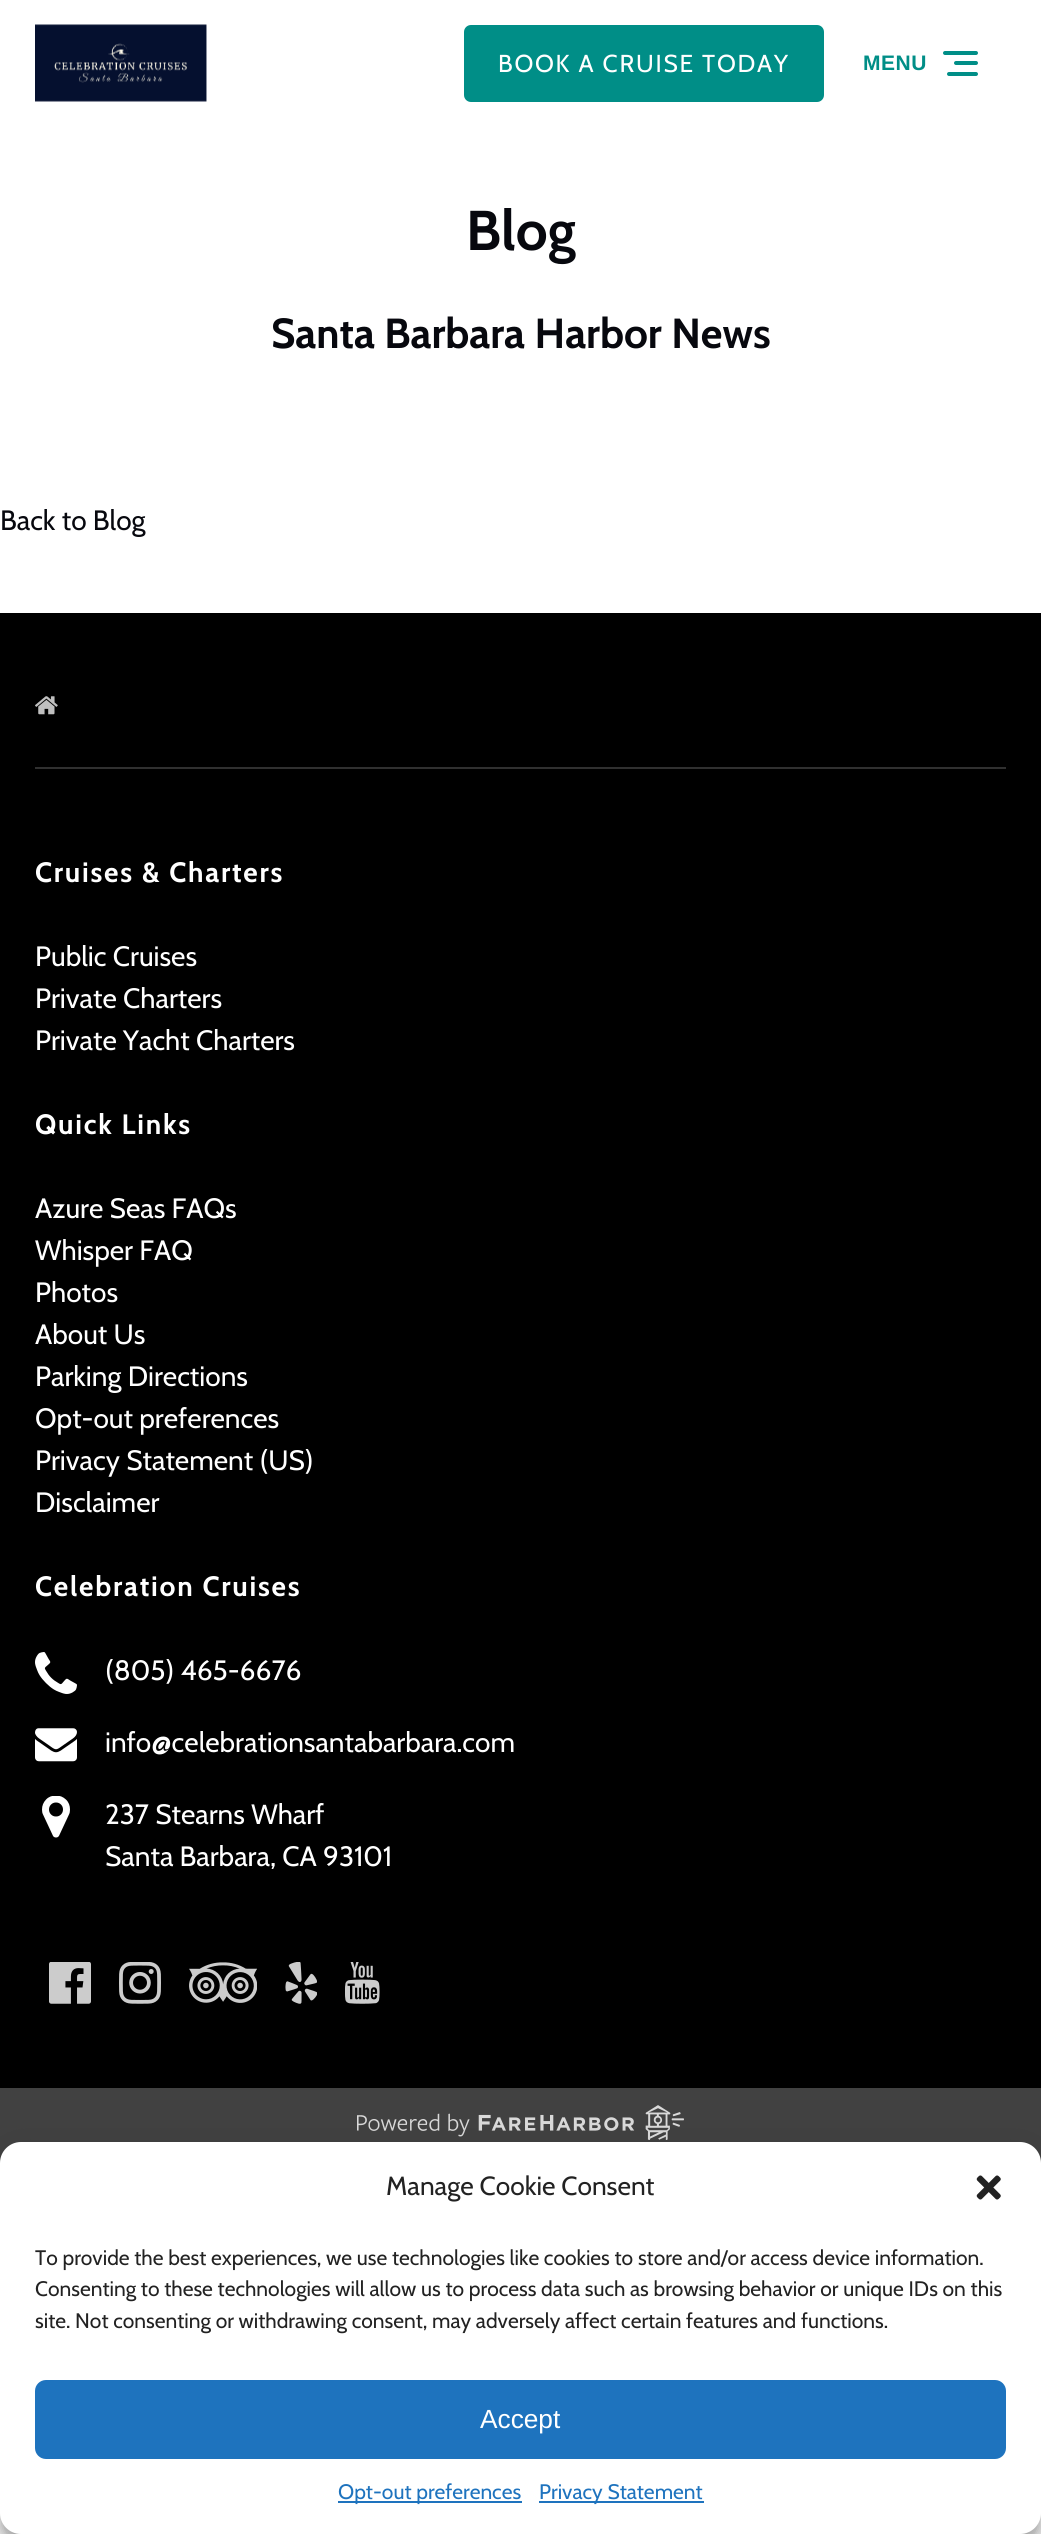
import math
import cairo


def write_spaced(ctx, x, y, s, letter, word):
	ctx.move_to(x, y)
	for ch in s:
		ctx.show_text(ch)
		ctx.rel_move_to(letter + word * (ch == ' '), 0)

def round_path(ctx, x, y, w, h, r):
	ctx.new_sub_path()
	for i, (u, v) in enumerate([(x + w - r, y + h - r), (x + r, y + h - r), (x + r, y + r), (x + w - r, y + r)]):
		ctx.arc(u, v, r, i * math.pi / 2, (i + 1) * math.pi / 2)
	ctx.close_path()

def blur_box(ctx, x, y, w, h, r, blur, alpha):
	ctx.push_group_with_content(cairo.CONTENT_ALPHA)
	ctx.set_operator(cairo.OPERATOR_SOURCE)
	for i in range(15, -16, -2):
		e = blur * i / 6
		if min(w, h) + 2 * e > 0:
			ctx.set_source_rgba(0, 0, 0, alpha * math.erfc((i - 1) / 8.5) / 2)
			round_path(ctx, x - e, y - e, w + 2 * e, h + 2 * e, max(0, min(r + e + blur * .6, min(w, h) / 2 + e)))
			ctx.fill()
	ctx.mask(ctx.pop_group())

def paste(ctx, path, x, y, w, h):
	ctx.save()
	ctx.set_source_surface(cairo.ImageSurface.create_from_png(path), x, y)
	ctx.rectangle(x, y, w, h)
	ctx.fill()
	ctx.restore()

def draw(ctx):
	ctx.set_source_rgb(1, 1, 1)
	ctx.paint()
	paste(ctx, 'media/1.png', 35, 24, 172, 78)
	ctx.set_source_rgb(0, 0.557, 0.529)
	round_path(ctx, 464, 25, 360, 77, 7)
	ctx.fill()
	ctx.select_font_face('Cabin')
	ctx.set_font_size(24.5)
	ctx.set_source_rgb(1, 1, 1)
	write_spaced(ctx, 498, 72, 'BOOK A CRUISE TODAY', 1.75, 0)
	ctx.select_font_face('Liberation Sans', cairo.FONT_SLANT_NORMAL, cairo.FONT_WEIGHT_BOLD)
	ctx.set_font_size(21)
	ctx.set_source_rgb(0, 0.557, 0.529)
	write_spaced(ctx, 863, 70, 'MENU', 0.5, 0)
	round_path(ctx, 954, 61, 24, 4, 2)
	ctx.fill()
	round_path(ctx, 943, 51, 35, 4, 2)
	ctx.fill()
	round_path(ctx, 947, 72, 31, 4, 2)
	ctx.fill()
	ctx.select_font_face('Cabin', cairo.FONT_SLANT_NORMAL, cairo.FONT_WEIGHT_BOLD)
	ctx.set_font_size(56)
	ctx.set_source_rgb(0.031, 0.035, 0.055)
	ctx.move_to(466, 250)
	ctx.show_text('Blog')
	ctx.set_font_size(42)
	ctx.move_to(271, 348)
	ctx.show_text('Santa Barbara Harbor News')
	ctx.select_font_face('Cabin')
	ctx.set_font_size(28)
	ctx.move_to(0, 530)
	ctx.show_text('Back to Blog')
	ctx.set_source_rgb(0, 0, 0)
	ctx.rectangle(0, 613, 1041, 1475)
	ctx.fill()
	paste(ctx, 'media/2.png', 35, 696, 23, 19)
	ctx.set_source_rgb(0.188, 0.188, 0.188)
	ctx.rectangle(35, 767, 971, 2)
	ctx.fill()
	ctx.select_font_face('Cabin', cairo.FONT_SLANT_NORMAL, cairo.FONT_WEIGHT_BOLD)
	ctx.set_source_rgb(1, 1, 1)
	write_spaced(ctx, 35, 882, 'Cruises & Charters', 1.75, 0)
	ctx.select_font_face('Cabin')
	for x, y, s in [
		(35, 966, 'Public Cruises'),
		(35, 1008, 'Private Charters'),
		(35, 1050, 'Private Yacht Charters'),
	]:
		ctx.move_to(x, y)
		ctx.show_text(s)
	ctx.select_font_face('Cabin', cairo.FONT_SLANT_NORMAL, cairo.FONT_WEIGHT_BOLD)
	write_spaced(ctx, 35, 1134, 'Quick Links', 1.75, 0)
	ctx.select_font_face('Cabin')
	for x, y, s in [
		(35, 1218, 'Azure Seas FAQs'),
		(35, 1260, 'Whisper FAQ'),
		(35, 1302, 'Photos'),
		(35, 1344, 'About Us'),
		(35, 1386, 'Parking Directions'),
		(35, 1428, 'Opt-out preferences'),
		(35, 1470, 'Privacy Statement (US)'),
		(35, 1512, 'Disclaimer'),
	]:
		ctx.move_to(x, y)
		ctx.show_text(s)
	ctx.select_font_face('Cabin', cairo.FONT_SLANT_NORMAL, cairo.FONT_WEIGHT_BOLD)
	write_spaced(ctx, 35, 1596, 'Celebration Cruises', 1.75, 0)
	paste(ctx, 'media/3.png', 35, 1652, 42, 42)
	ctx.select_font_face('Cabin')
	ctx.move_to(105, 1680)
	ctx.show_text('(805) 465-6676')
	paste(ctx, 'media/4.png', 35, 1728, 42, 34)
	ctx.move_to(105, 1752)
	ctx.show_text('info@celebrationsantabarbara.com')
	paste(ctx, 'media/5.png', 42, 1796, 28, 42)
	ctx.move_to(105, 1824)
	ctx.show_text('237 Stearns Wharf')
	ctx.move_to(105, 1866)
	ctx.show_text('Santa Barbara, CA 93101')
	paste(ctx, 'media/6.png', 49, 1962, 42, 42)
	paste(ctx, 'media/7.png', 119, 1962, 42, 42)
	paste(ctx, 'media/8.png', 189, 1962, 68, 41)
	paste(ctx, 'media/9.png', 285, 1962, 32, 42)
	paste(ctx, 'media/10.png', 345, 1962, 35, 42)
	ctx.set_source_rgb(0.255, 0.255, 0.255)
	ctx.rectangle(0, 2088, 1041, 75)
	ctx.fill()
	paste(ctx, 'media/11.png', 357, 2105, 327, 35)
	ctx.set_source_rgb(0, 0, 0)
	blur_box(ctx, 0, 2153, 1041, 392, 21, 5, 0.23)
	blur_box(ctx, 0, 2160, 1041, 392, 21, 17.5, 0.19)
	ctx.set_source_rgb(1, 1, 1)
	round_path(ctx, 0, 2142, 1041, 392, 21)
	ctx.fill()
	ctx.set_font_size(26.25)
	ctx.set_source_rgb(0.133, 0.133, 0.133)
	ctx.move_to(386, 2195)
	ctx.show_text('Manage Cookie Consent')
	paste(ctx, 'media/12.png', 976, 2175, 25, 25)
	ctx.set_font_size(21)
	for x, y, s in [
		(35, 2265, 'To provide the best experiences, we use technologies like cookies to store and/or access device information.'),
		(35, 2296, 'Consenting to these technologies will allow us to process data such as browsing behavior or unique IDs on this'),
		(35, 2328, 'site. Not consenting or withdrawing consent, may adversely affect certain features and functions.'),
	]:
		ctx.move_to(x, y)
		ctx.show_text(s)
	ctx.set_source_rgb(0.118, 0.451, 0.745)
	round_path(ctx, 36, 2381, 969, 77, 10)
	ctx.fill_preserve()
	ctx.stroke()
	ctx.select_font_face('Liberation Sans')
	ctx.set_font_size(26.25)
	ctx.set_source_rgb(1, 1, 1)
	ctx.move_to(480, 2428)
	ctx.show_text('Accept')
	ctx.set_source_rgb(0.118, 0.451, 0.745)
	ctx.rectangle(338, 2501, 184, 2)
	ctx.fill()
	ctx.select_font_face('Cabin')
	ctx.set_font_size(21)
	ctx.move_to(338, 2499)
	ctx.show_text('Opt-out preferences')
	ctx.rectangle(539, 2501, 165, 2)
	ctx.fill()
	ctx.move_to(539, 2499)
	ctx.show_text('Privacy Statement')


surface = cairo.ImageSurface(cairo.FORMAT_RGB24, 1041, 2534)
ctx = cairo.Context(surface)
options = cairo.FontOptions()
options.set_hint_metrics(cairo.HINT_METRICS_OFF)
options.set_hint_style(cairo.HINT_STYLE_NONE)
ctx.set_font_options(options)
ctx.set_miter_limit(4)
draw(ctx)
surface.write_to_png('image.png')
